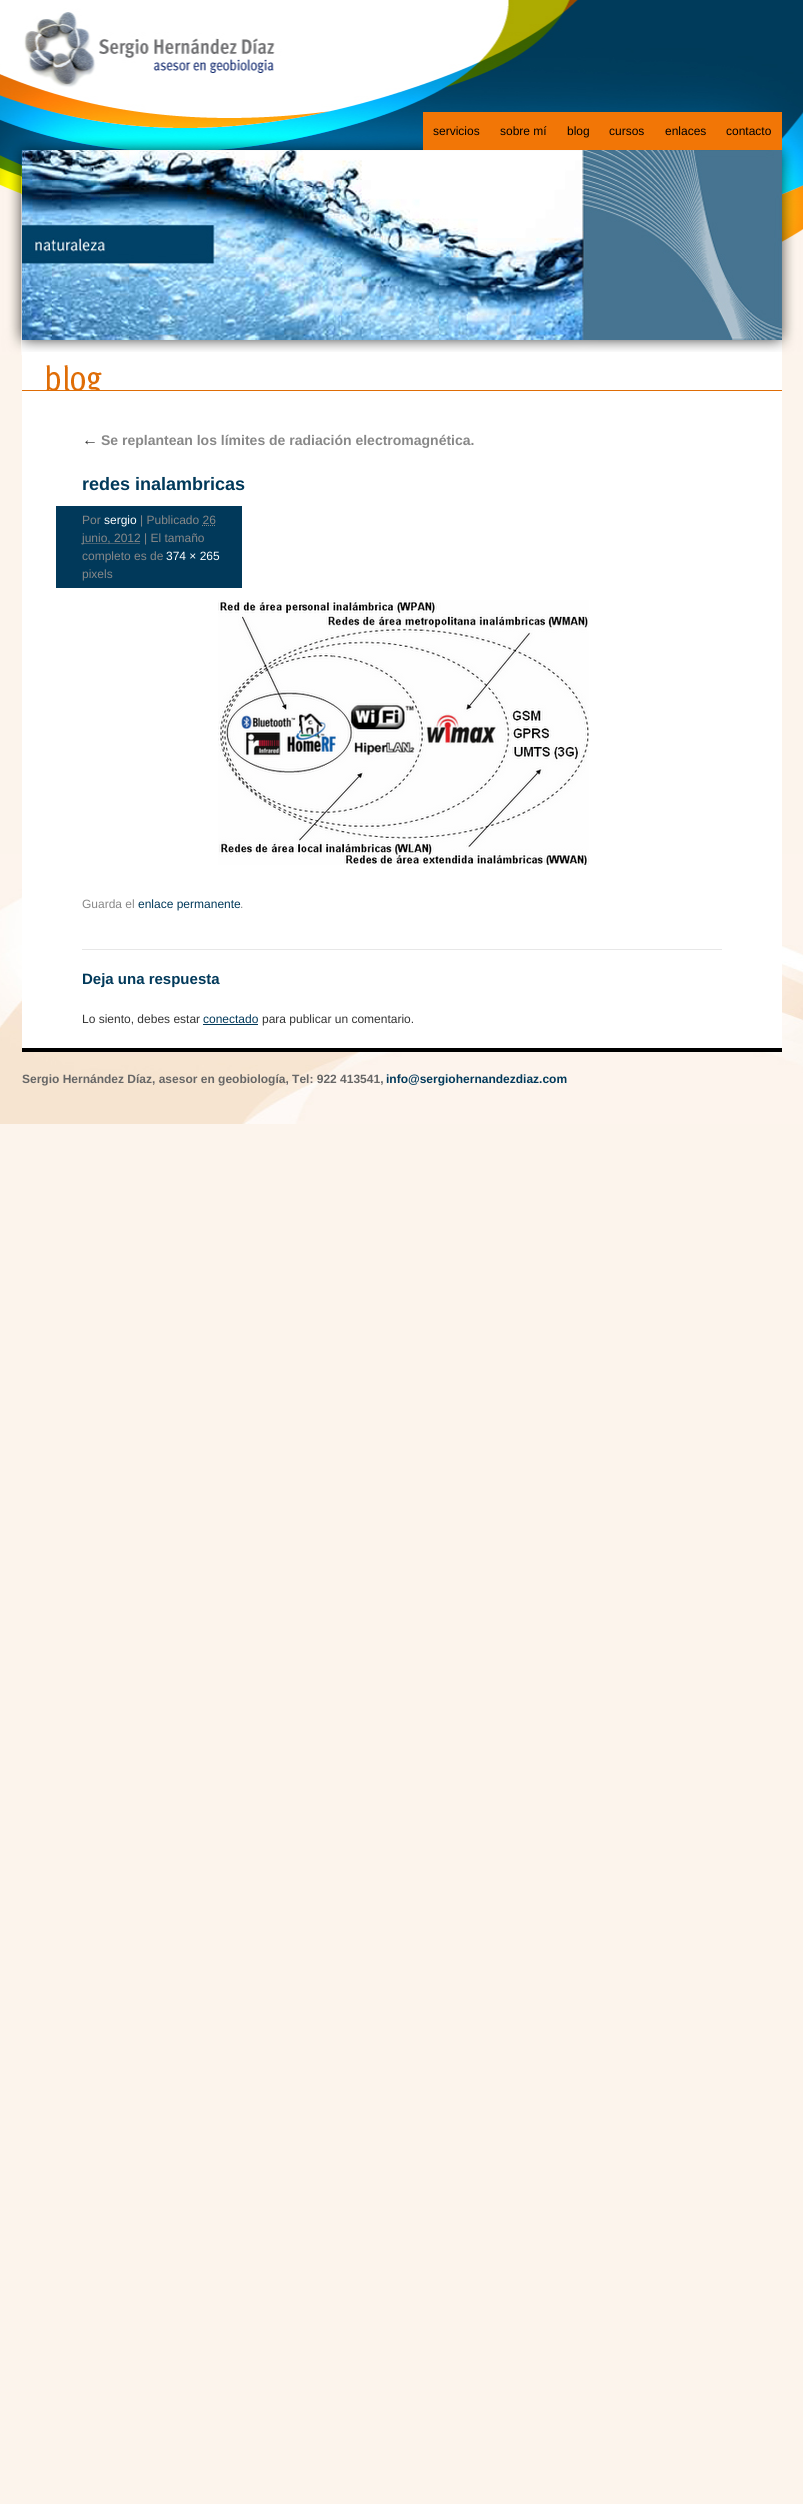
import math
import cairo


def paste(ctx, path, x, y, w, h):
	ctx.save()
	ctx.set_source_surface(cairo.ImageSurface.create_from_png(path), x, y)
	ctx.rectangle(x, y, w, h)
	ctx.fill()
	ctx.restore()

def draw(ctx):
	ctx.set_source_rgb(0.988, 0.957, 0.925)
	ctx.paint()
	paste(ctx, 'media/1.png', 0, 0, 803, 355)
	paste(ctx, 'media/2.png', 0, 854, 803, 270)
	ctx.set_source_rgb(0.949, 0.463, 0.027)
	ctx.rectangle(423, 112, 359, 38)
	ctx.fill()
	ctx.select_font_face('Liberation Sans')
	ctx.set_font_size(12)
	ctx.set_source_rgb(0, 0, 0)
	for x, y, s in [
		(433, 135, 'servicios'),
		(500, 135, 'sobre mí'),
		(567, 135, 'blog'),
		(609, 135, 'cursos'),
		(665, 135, 'enlaces'),
		(726, 135, 'contacto'),
	]:
		ctx.move_to(x, y)
		ctx.show_text(s)
	paste(ctx, 'media/3.png', 22, 150, 760, 190)
	ctx.set_source_rgb(1, 1, 1)
	ctx.rectangle(780, 352, 2, 3)
	ctx.fill()
	paste(ctx, 'media/4.png', 22, 340, 760, 12)
	ctx.rectangle(22, 355, 760, 35)
	ctx.fill()
	ctx.set_source_rgb(0.875, 0.427, 0.027)
	ctx.rectangle(22, 390, 760, 1)
	ctx.fill()
	paste(ctx, 'media/5.png', 46, 365, 56, 25)
	ctx.set_source_rgb(1, 1, 1)
	ctx.rectangle(22, 391, 760, 657)
	ctx.fill()
	ctx.select_font_face('Liberation Sans', cairo.FONT_SLANT_ITALIC)
	ctx.set_font_size(16)
	ctx.set_source_rgb(0.2, 0.2, 0.2)
	ctx.move_to(82, 445)
	ctx.show_text('←')
	ctx.select_font_face('Liberation Sans', cairo.FONT_SLANT_NORMAL, cairo.FONT_WEIGHT_BOLD)
	ctx.set_font_size(14)
	ctx.set_source_rgb(0.533, 0.533, 0.533)
	ctx.move_to(101, 445)
	ctx.show_text('Se replantean los límites de radiación electromagnética.')
	ctx.set_font_size(18)
	ctx.set_source_rgb(0.004, 0.224, 0.353)
	ctx.move_to(82, 490)
	ctx.show_text('redes inalambricas')
	ctx.rectangle(56, 506, 186, 82)
	ctx.fill()
	ctx.select_font_face('Liberation Sans')
	ctx.set_font_size(12)
	ctx.set_source_rgb(0.533, 0.533, 0.533)
	ctx.move_to(82, 524)
	ctx.show_text('Por')
	ctx.set_source_rgb(1, 1, 1)
	ctx.move_to(104, 524)
	ctx.show_text('sergio')
	ctx.set_source_rgb(0.533, 0.533, 0.533)
	ctx.move_to(140, 524)
	ctx.show_text('| Publicado 26')
	ctx.new_path()
	ctx.move_to(81.5, 543.5)
	ctx.line_to(140, 543.5)
	ctx.set_line_width(1)
	ctx.set_dash([1, 1])
	ctx.stroke()
	ctx.move_to(82, 542)
	ctx.show_text('junio, 2012 | El tamaño')
	ctx.new_path()
	ctx.move_to(202, 525.5)
	ctx.line_to(215.5, 525.5)
	ctx.stroke()
	ctx.move_to(82, 560)
	ctx.show_text('completo es de')
	ctx.set_source_rgb(1, 1, 1)
	ctx.move_to(166, 560)
	ctx.show_text('374 × 265')
	ctx.set_source_rgb(0.533, 0.533, 0.533)
	ctx.move_to(82, 578)
	ctx.show_text('pixels')
	paste(ctx, 'media/6.png', 218, 600, 371, 265)
	ctx.move_to(82, 908)
	ctx.show_text('Guarda el')
	ctx.set_source_rgb(0.004, 0.224, 0.353)
	ctx.move_to(138, 908)
	ctx.show_text('enlace permanente')
	ctx.set_source_rgb(0.533, 0.533, 0.533)
	ctx.move_to(240, 908)
	ctx.show_text('.')
	ctx.set_source_rgb(0.906, 0.906, 0.906)
	ctx.rectangle(82, 949, 640, 1)
	ctx.fill()
	ctx.select_font_face('Liberation Sans', cairo.FONT_SLANT_NORMAL, cairo.FONT_WEIGHT_BOLD)
	ctx.set_font_size(15)
	ctx.set_source_rgb(0.004, 0.224, 0.353)
	ctx.move_to(82, 984)
	ctx.show_text('Deja una respuesta')
	ctx.select_font_face('Liberation Sans')
	ctx.set_font_size(12)
	ctx.set_source_rgb(0.2, 0.2, 0.2)
	ctx.move_to(82, 1023)
	ctx.show_text('Lo siento, debes estar')
	ctx.set_source_rgb(0.004, 0.224, 0.353)
	ctx.move_to(203, 1023)
	ctx.show_text('conectado')
	ctx.rectangle(203, 1024, 55, 1)
	ctx.fill()
	ctx.set_source_rgb(0.2, 0.2, 0.2)
	ctx.move_to(262, 1023)
	ctx.show_text('para publicar un comentario.')
	ctx.set_source_rgb(0, 0, 0)
	ctx.rectangle(22, 1048, 760, 4)
	ctx.fill()
	ctx.select_font_face('Liberation Sans', cairo.FONT_SLANT_NORMAL, cairo.FONT_WEIGHT_BOLD)
	ctx.set_source_rgb(0.4, 0.4, 0.4)
	ctx.move_to(22, 1083)
	ctx.show_text('Sergio Hernández Díaz, asesor en geobiología, Tel: 922 413541,')
	ctx.set_source_rgb(0.004, 0.224, 0.353)
	ctx.move_to(386, 1083)
	ctx.show_text('info@sergiohernandezdiaz.com')


surface = cairo.ImageSurface(cairo.FORMAT_RGB24, 803, 2504)
ctx = cairo.Context(surface)
options = cairo.FontOptions()
options.set_hint_metrics(cairo.HINT_METRICS_OFF)
options.set_hint_style(cairo.HINT_STYLE_NONE)
ctx.set_font_options(options)
ctx.set_miter_limit(4)
draw(ctx)
surface.write_to_png('image.png')
